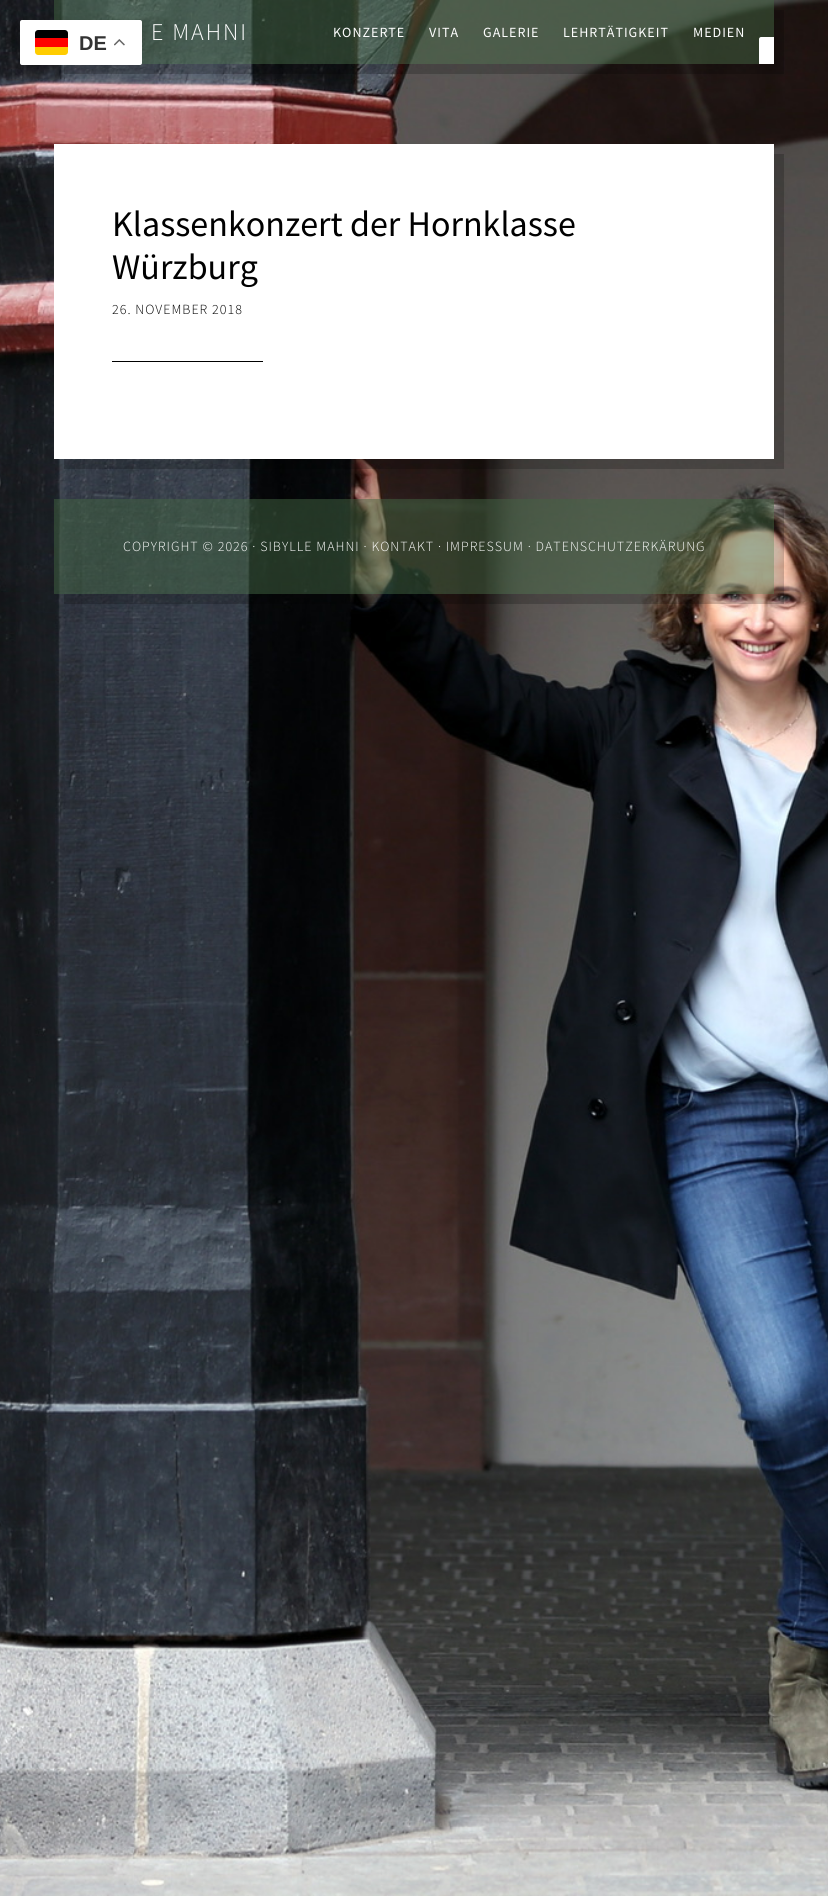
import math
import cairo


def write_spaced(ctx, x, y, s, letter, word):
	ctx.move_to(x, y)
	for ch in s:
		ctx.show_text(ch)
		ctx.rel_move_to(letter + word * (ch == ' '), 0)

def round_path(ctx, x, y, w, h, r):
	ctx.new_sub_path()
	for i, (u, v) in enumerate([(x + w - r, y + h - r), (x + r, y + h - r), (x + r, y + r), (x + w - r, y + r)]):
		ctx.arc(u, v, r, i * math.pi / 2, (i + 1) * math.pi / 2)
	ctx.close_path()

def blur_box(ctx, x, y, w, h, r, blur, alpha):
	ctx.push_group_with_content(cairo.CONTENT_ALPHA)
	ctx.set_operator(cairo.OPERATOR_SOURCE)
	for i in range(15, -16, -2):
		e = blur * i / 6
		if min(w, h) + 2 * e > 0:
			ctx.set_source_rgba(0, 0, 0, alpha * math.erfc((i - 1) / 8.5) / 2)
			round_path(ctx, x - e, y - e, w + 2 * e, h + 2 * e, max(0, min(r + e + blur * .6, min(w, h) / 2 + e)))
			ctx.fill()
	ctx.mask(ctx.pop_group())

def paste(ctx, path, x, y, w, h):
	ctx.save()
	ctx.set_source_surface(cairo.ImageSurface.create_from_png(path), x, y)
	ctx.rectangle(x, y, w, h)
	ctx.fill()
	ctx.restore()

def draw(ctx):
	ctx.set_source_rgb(1, 1, 1)
	ctx.paint()
	paste(ctx, 'media/1.png', 0, 0, 828, 1896)
	ctx.set_source_rgba(0, 0, 0, 0.2)
	ctx.new_path()
	ctx.move_to(64, 64)
	ctx.line_to(64, 74)
	ctx.line_to(784, 74)
	ctx.line_to(784, 10)
	ctx.line_to(774, 10)
	ctx.line_to(774, 64)
	ctx.close_path()
	ctx.fill()
	ctx.set_source_rgba(0.263, 0.392, 0.263, 0.5)
	ctx.rectangle(54, 0, 720, 64)
	ctx.fill()
	ctx.set_source_rgb(0, 0, 0)
	blur_box(ctx, 20, 25, 122, 45, 2, 7.5, 0.15)
	ctx.set_source_rgb(1, 1, 1)
	round_path(ctx, 20, 20, 122, 45, 2)
	ctx.fill()
	ctx.set_source_rgb(1, 0.8, 0)
	ctx.new_path()
	ctx.move_to(35, 47)
	ctx.line_to(68, 47)
	ctx.line_to(68, 52)
	ctx.curve_to(68, 53.5, 66.5, 55, 65, 55)
	ctx.line_to(38, 55)
	ctx.curve_to(36.5, 55, 35, 53.5, 35, 52)
	ctx.close_path()
	ctx.fill()
	ctx.set_source_rgb(0, 0, 0)
	ctx.new_path()
	ctx.move_to(38, 30)
	ctx.line_to(65, 30)
	ctx.curve_to(66.5, 30, 68, 31.5, 68, 33)
	ctx.line_to(68, 38)
	ctx.line_to(35, 38)
	ctx.line_to(35, 33)
	ctx.curve_to(35, 31.5, 36.5, 30, 38, 30)
	ctx.close_path()
	ctx.fill()
	ctx.set_source_rgb(1, 0, 0)
	ctx.rectangle(35, 38, 33, 9)
	ctx.fill()
	ctx.select_font_face('Liberation Sans', cairo.FONT_SLANT_NORMAL, cairo.FONT_WEIGHT_BOLD)
	ctx.set_font_size(20)
	ctx.set_source_rgb(0.2, 0.2, 0.2)
	ctx.move_to(79, 50)
	ctx.show_text('DE')
	paste(ctx, 'media/2.png', 114, 39, 11, 7)
	ctx.select_font_face('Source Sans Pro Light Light')
	ctx.set_font_size(24)
	ctx.set_source_rgb(1, 1, 1)
	write_spaced(ctx, 151, 40, 'E MAHNI', 2, 0)
	ctx.select_font_face('Source Sans Pro')
	ctx.set_font_size(14)
	for x, y, s in [
		(333, 37, 'KONZERTE'),
		(429, 37, 'VITA'),
		(483, 37, 'GALERIE'),
		(563, 37, 'LEHRTÄTIGKEIT'),
		(693, 37, 'MEDIEN'),
	]:
		write_spaced(ctx, x, y, s, 1, 0)
	ctx.new_path()
	ctx.move_to(761, 37)
	ctx.line_to(774, 37)
	ctx.line_to(774, 64)
	ctx.line_to(759, 64)
	ctx.line_to(759, 39)
	ctx.curve_to(759, 38, 760, 37, 761, 37)
	ctx.close_path()
	ctx.fill()
	ctx.set_source_rgba(0, 0, 0, 0.2)
	ctx.new_path()
	ctx.move_to(64, 459)
	ctx.line_to(64, 469)
	ctx.line_to(784, 469)
	ctx.line_to(784, 154)
	ctx.line_to(774, 154)
	ctx.line_to(774, 459)
	ctx.close_path()
	ctx.fill()
	ctx.set_source_rgb(1, 1, 1)
	ctx.rectangle(54, 144, 720, 315)
	ctx.fill()
	ctx.set_font_size(36)
	ctx.set_source_rgb(0, 0, 0)
	ctx.move_to(112, 236)
	ctx.show_text('Klassenkonzert der Hornklasse')
	ctx.move_to(112, 279)
	ctx.show_text('Würzburg')
	ctx.select_font_face('Source Sans Pro Light Light')
	ctx.set_font_size(14)
	write_spaced(ctx, 112, 314, '26. NOVEMBER 2018', 1, 0)
	ctx.rectangle(112, 361, 151, 1)
	ctx.fill()
	ctx.set_source_rgba(0, 0, 0, 0.2)
	ctx.new_path()
	ctx.move_to(64, 594)
	ctx.line_to(64, 604)
	ctx.line_to(784, 604)
	ctx.line_to(784, 509)
	ctx.line_to(774, 509)
	ctx.line_to(774, 594)
	ctx.close_path()
	ctx.fill()
	ctx.set_source_rgba(0.263, 0.392, 0.263, 0.5)
	ctx.rectangle(54, 499, 720, 95)
	ctx.fill()
	ctx.set_source_rgb(1, 1, 1)
	write_spaced(ctx, 123, 551, 'COPYRIGHT © 2026 · SIBYLLE MAHNI · KONTAKT · IMPRESSUM · DATENSCHUTZERKÄRUNG', 1, 0)


surface = cairo.ImageSurface(cairo.FORMAT_RGB24, 828, 1896)
ctx = cairo.Context(surface)
options = cairo.FontOptions()
options.set_hint_metrics(cairo.HINT_METRICS_OFF)
options.set_hint_style(cairo.HINT_STYLE_NONE)
ctx.set_font_options(options)
ctx.set_miter_limit(4)
draw(ctx)
surface.write_to_png('image.png')
